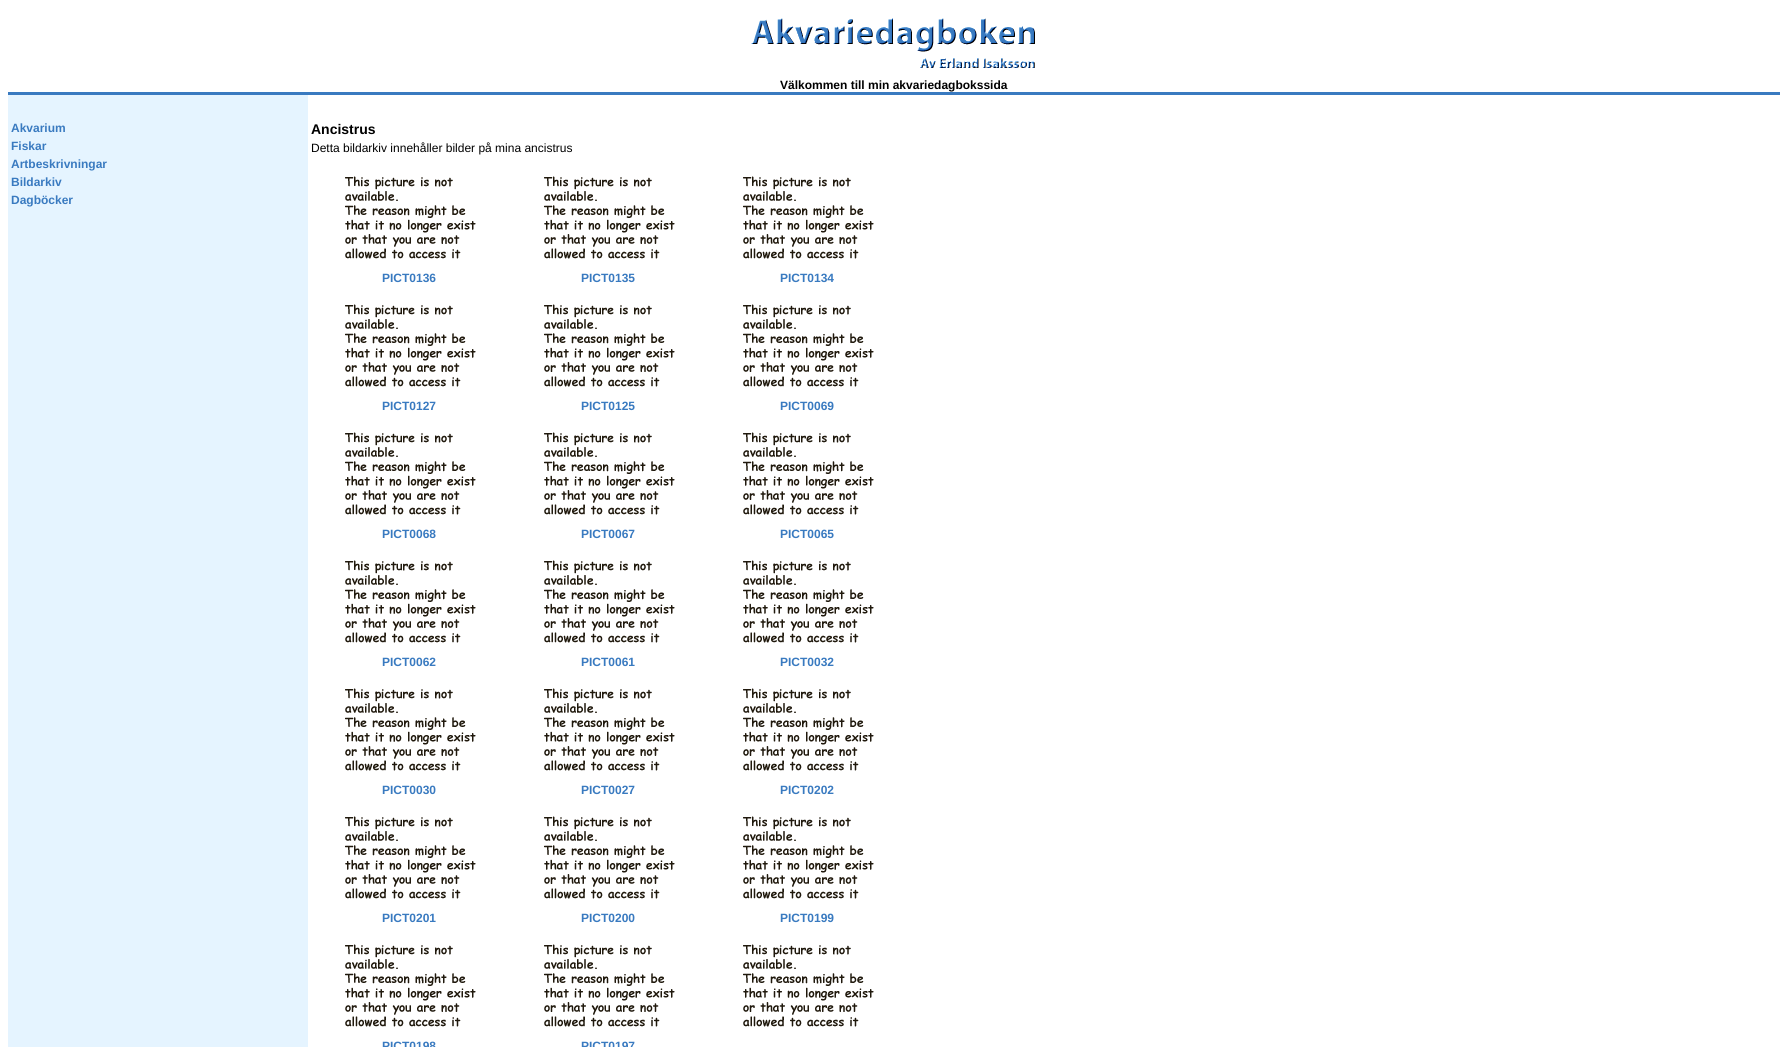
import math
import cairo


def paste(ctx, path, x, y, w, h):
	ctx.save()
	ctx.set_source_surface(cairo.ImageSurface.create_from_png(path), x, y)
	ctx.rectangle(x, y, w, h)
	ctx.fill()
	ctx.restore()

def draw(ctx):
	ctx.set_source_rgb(1, 1, 1)
	ctx.paint()
	paste(ctx, 'media/1.png', 751, 18, 284, 50)
	ctx.select_font_face('Liberation Sans', cairo.FONT_SLANT_NORMAL, cairo.FONT_WEIGHT_BOLD)
	ctx.set_font_size(12)
	ctx.set_source_rgb(0, 0, 0)
	ctx.move_to(780, 89)
	ctx.show_text('Välkommen till min akvariedagbokssida')
	ctx.set_source_rgb(0.224, 0.478, 0.753)
	ctx.rectangle(8, 92, 1772, 3)
	ctx.fill()
	ctx.set_source_rgb(0.898, 0.957, 1)
	ctx.rectangle(8, 95, 300, 952)
	ctx.fill()
	ctx.set_source_rgb(0.224, 0.478, 0.753)
	for x, y, s in [
		(11, 132, 'Akvarium'),
		(11, 150, 'Fiskar'),
		(11, 168, 'Artbeskrivningar'),
		(11, 186, 'Bildarkiv'),
		(11, 204, 'Dagböcker'),
	]:
		ctx.move_to(x, y)
		ctx.show_text(s)
	ctx.set_font_size(14)
	ctx.set_source_rgb(0, 0, 0)
	ctx.move_to(311, 134)
	ctx.show_text('Ancistrus')
	ctx.select_font_face('Liberation Sans')
	ctx.set_font_size(12)
	ctx.move_to(311, 152)
	ctx.show_text('Detta bildarkiv innehåller bilder på mina ancistrus')
	paste(ctx, 'media/2.png', 345, 176, 131, 83)
	ctx.select_font_face('Liberation Sans', cairo.FONT_SLANT_NORMAL, cairo.FONT_WEIGHT_BOLD)
	ctx.set_source_rgb(0.224, 0.478, 0.753)
	ctx.move_to(382, 282)
	ctx.show_text('PICT0136')
	paste(ctx, 'media/2.png', 544, 176, 131, 83)
	ctx.move_to(581, 282)
	ctx.show_text('PICT0135')
	paste(ctx, 'media/2.png', 743, 176, 131, 83)
	ctx.move_to(780, 282)
	ctx.show_text('PICT0134')
	paste(ctx, 'media/2.png', 345, 304, 131, 83)
	ctx.move_to(382, 410)
	ctx.show_text('PICT0127')
	paste(ctx, 'media/2.png', 544, 304, 131, 83)
	ctx.move_to(581, 410)
	ctx.show_text('PICT0125')
	paste(ctx, 'media/2.png', 743, 304, 131, 83)
	ctx.move_to(780, 410)
	ctx.show_text('PICT0069')
	paste(ctx, 'media/2.png', 345, 432, 131, 83)
	ctx.move_to(382, 538)
	ctx.show_text('PICT0068')
	paste(ctx, 'media/2.png', 544, 432, 131, 83)
	ctx.move_to(581, 538)
	ctx.show_text('PICT0067')
	paste(ctx, 'media/2.png', 743, 432, 131, 83)
	ctx.move_to(780, 538)
	ctx.show_text('PICT0065')
	paste(ctx, 'media/2.png', 345, 560, 131, 83)
	ctx.move_to(382, 666)
	ctx.show_text('PICT0062')
	paste(ctx, 'media/2.png', 544, 560, 131, 83)
	ctx.move_to(581, 666)
	ctx.show_text('PICT0061')
	paste(ctx, 'media/2.png', 743, 560, 131, 83)
	ctx.move_to(780, 666)
	ctx.show_text('PICT0032')
	paste(ctx, 'media/2.png', 345, 688, 131, 83)
	ctx.move_to(382, 794)
	ctx.show_text('PICT0030')
	paste(ctx, 'media/2.png', 544, 688, 131, 83)
	ctx.move_to(581, 794)
	ctx.show_text('PICT0027')
	paste(ctx, 'media/2.png', 743, 688, 131, 83)
	ctx.move_to(780, 794)
	ctx.show_text('PICT0202')
	paste(ctx, 'media/2.png', 345, 816, 131, 83)
	ctx.move_to(382, 922)
	ctx.show_text('PICT0201')
	paste(ctx, 'media/2.png', 544, 816, 131, 83)
	ctx.move_to(581, 922)
	ctx.show_text('PICT0200')
	paste(ctx, 'media/2.png', 743, 816, 131, 83)
	ctx.move_to(780, 922)
	ctx.show_text('PICT0199')
	paste(ctx, 'media/2.png', 743, 944, 131, 83)
	paste(ctx, 'media/2.png', 345, 944, 131, 83)
	ctx.move_to(382, 1050)
	ctx.show_text('PICT0198')
	paste(ctx, 'media/2.png', 544, 944, 131, 83)
	ctx.move_to(581, 1050)
	ctx.show_text('PICT0197')


surface = cairo.ImageSurface(cairo.FORMAT_RGB24, 1788, 1047)
ctx = cairo.Context(surface)
options = cairo.FontOptions()
options.set_hint_metrics(cairo.HINT_METRICS_OFF)
options.set_hint_style(cairo.HINT_STYLE_NONE)
ctx.set_font_options(options)
ctx.set_miter_limit(4)
draw(ctx)
surface.write_to_png('image.png')
